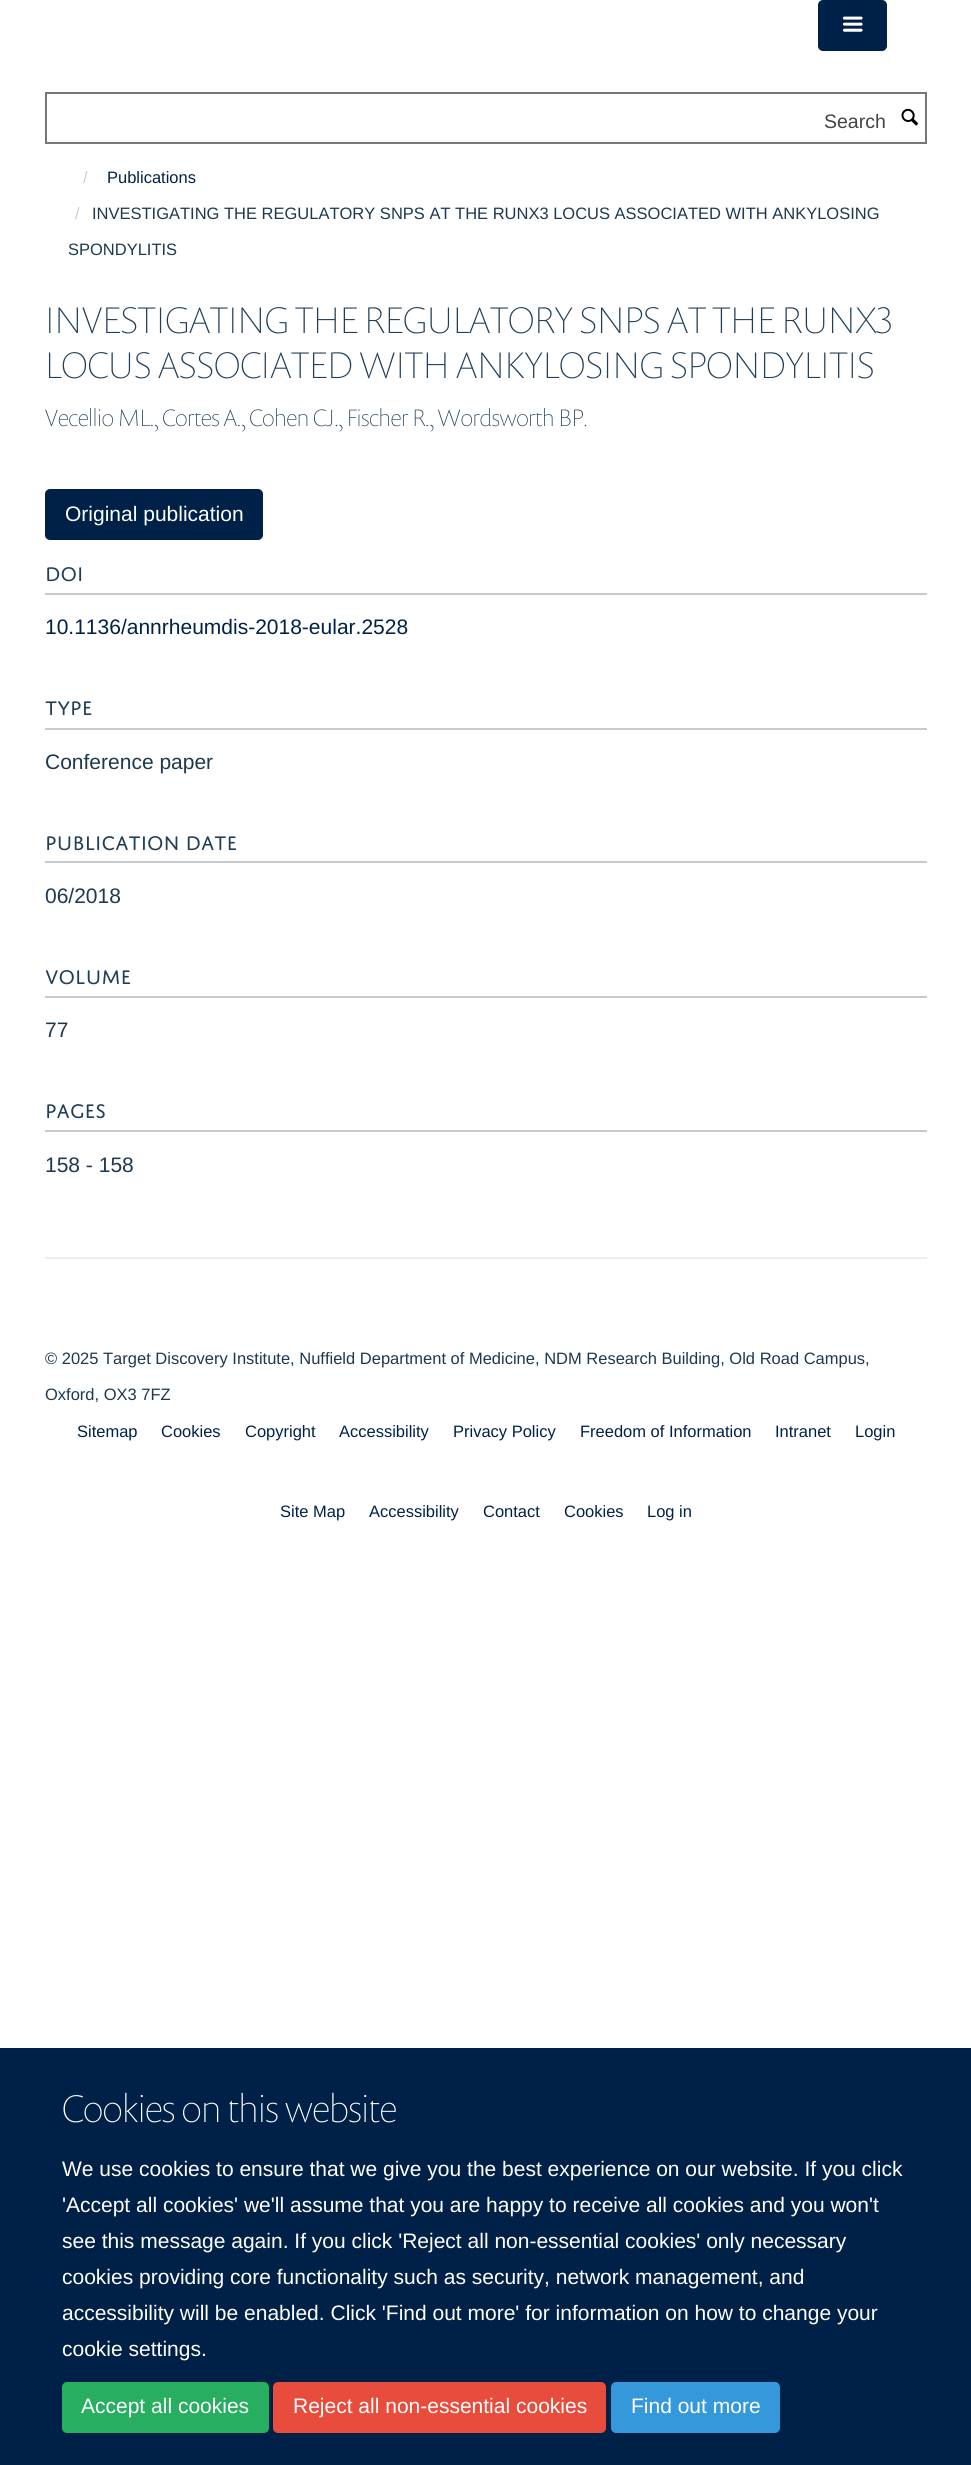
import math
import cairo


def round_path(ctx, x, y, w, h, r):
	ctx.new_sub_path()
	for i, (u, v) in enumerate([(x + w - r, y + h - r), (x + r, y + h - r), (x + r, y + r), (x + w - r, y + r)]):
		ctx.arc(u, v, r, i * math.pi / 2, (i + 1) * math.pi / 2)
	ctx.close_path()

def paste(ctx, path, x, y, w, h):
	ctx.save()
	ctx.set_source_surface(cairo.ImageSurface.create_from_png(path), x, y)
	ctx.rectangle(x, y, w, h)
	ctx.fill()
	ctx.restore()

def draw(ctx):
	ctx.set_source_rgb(1, 1, 1)
	ctx.paint()
	ctx.set_source_rgb(0, 0.129, 0.278)
	round_path(ctx, 819, 1, 67, 49, 4)
	ctx.fill_preserve()
	ctx.stroke()
	paste(ctx, 'media/1.png', 842, 16, 21, 16)
	ctx.rectangle(46, 93, 880, 50)
	ctx.set_source_rgb(0.467, 0.467, 0.467)
	ctx.stroke()
	ctx.select_font_face('Liberation Sans')
	ctx.set_font_size(19.5)
	ctx.set_source_rgb(0.267, 0.267, 0.267)
	ctx.move_to(824, 128)
	ctx.show_text('Search')
	paste(ctx, 'media/2.png', 901, 108, 17, 18)
	ctx.set_font_size(16.5)
	ctx.set_source_rgb(0.8, 0.8, 0.8)
	ctx.move_to(83, 183)
	ctx.show_text('/')
	ctx.set_source_rgb(0, 0.129, 0.278)
	ctx.move_to(107, 183)
	ctx.show_text('Publications')
	ctx.set_source_rgb(0.8, 0.8, 0.8)
	ctx.move_to(75, 219)
	ctx.show_text('/')
	ctx.set_source_rgb(0.114, 0.22, 0.314)
	ctx.move_to(92, 219)
	ctx.show_text('INVESTIGATING THE REGULATORY SNPS AT THE RUNX3 LOCUS ASSOCIATED WITH ANKYLOSING')
	ctx.move_to(68, 255)
	ctx.show_text('SPONDYLITIS')
	ctx.select_font_face('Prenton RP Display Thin')
	ctx.set_font_size(37.5)
	ctx.set_source_rgb(0.125, 0.243, 0.345)
	ctx.move_to(45, 333)
	ctx.show_text('INVESTIGATING THE REGULATORY SNPS AT THE RUNX3')
	ctx.move_to(45, 378)
	ctx.show_text('LOCUS ASSOCIATED WITH ANKYLOSING SPONDYLITIS')
	ctx.set_font_size(24)
	ctx.move_to(45, 426)
	ctx.show_text('Vecellio ML., Cortes A., Cohen CJ., Fischer R., Wordsworth BP.')
	ctx.set_source_rgb(0, 0.129, 0.278)
	round_path(ctx, 46, 490, 216, 49, 4)
	ctx.fill_preserve()
	ctx.stroke()
	ctx.select_font_face('Liberation Sans')
	ctx.set_font_size(21)
	ctx.set_source_rgb(1, 1, 1)
	ctx.move_to(65, 521)
	ctx.show_text('Original publication')
	ctx.set_source_rgb(0.776, 0.792, 0.812)
	ctx.rectangle(45, 593, 882, 2)
	ctx.fill()
	ctx.select_font_face('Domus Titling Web')
	ctx.set_source_rgb(0.125, 0.243, 0.345)
	ctx.move_to(45, 581)
	ctx.show_text('DOI')
	ctx.select_font_face('Liberation Sans')
	ctx.set_source_rgb(0, 0.129, 0.278)
	ctx.move_to(45, 634)
	ctx.show_text('10.1136/annrheumdis-2018-eular.2528')
	ctx.set_source_rgb(0.776, 0.792, 0.812)
	ctx.rectangle(45, 728, 882, 2)
	ctx.fill()
	ctx.select_font_face('Domus Titling Web')
	ctx.set_source_rgb(0.125, 0.243, 0.345)
	ctx.move_to(45, 715)
	ctx.show_text('TYPE')
	ctx.select_font_face('Liberation Sans')
	ctx.set_source_rgb(0.114, 0.22, 0.314)
	ctx.move_to(45, 769)
	ctx.show_text('Conference paper')
	ctx.set_source_rgb(0.776, 0.792, 0.812)
	ctx.rectangle(45, 861, 882, 2)
	ctx.fill()
	ctx.select_font_face('Domus Titling Web')
	ctx.set_source_rgb(0.125, 0.243, 0.345)
	ctx.move_to(45, 850)
	ctx.show_text('PUBLICATION DATE')
	ctx.select_font_face('Liberation Sans')
	ctx.set_source_rgb(0.114, 0.22, 0.314)
	ctx.move_to(45, 903)
	ctx.show_text('06/2018')
	ctx.set_source_rgb(0.776, 0.792, 0.812)
	ctx.rectangle(45, 996, 882, 2)
	ctx.fill()
	ctx.select_font_face('Domus Titling Web')
	ctx.set_source_rgb(0.125, 0.243, 0.345)
	ctx.move_to(45, 984)
	ctx.show_text('VOLUME')
	ctx.select_font_face('Liberation Sans')
	ctx.set_source_rgb(0.114, 0.22, 0.314)
	ctx.move_to(45, 1037)
	ctx.show_text('77')
	ctx.set_source_rgb(0.776, 0.792, 0.812)
	ctx.rectangle(45, 1130, 882, 2)
	ctx.fill()
	ctx.select_font_face('Domus Titling Web')
	ctx.set_source_rgb(0.125, 0.243, 0.345)
	ctx.move_to(45, 1118)
	ctx.show_text('PAGES')
	ctx.select_font_face('Liberation Sans')
	ctx.set_source_rgb(0.114, 0.22, 0.314)
	ctx.move_to(45, 1172)
	ctx.show_text('158 - 158')
	ctx.set_source_rgb(0.933, 0.933, 0.933)
	ctx.rectangle(45, 1257, 882, 2)
	ctx.fill()
	ctx.set_font_size(16.5)
	ctx.set_source_rgb(0.114, 0.22, 0.314)
	ctx.move_to(45, 1364)
	ctx.show_text('© 2025 Target Discovery Institute, Nuffield Department of Medicine, NDM Research Building, Old Road Campus,')
	ctx.move_to(45, 1400)
	ctx.show_text('Oxford, OX3 7FZ')
	ctx.set_source_rgb(0, 0.129, 0.278)
	for x, y, s in [
		(77, 1437, 'Sitemap'),
		(161, 1437, 'Cookies'),
		(245, 1437, 'Copyright'),
		(339, 1437, 'Accessibility'),
		(453, 1437, 'Privacy Policy'),
		(580, 1437, 'Freedom of Information'),
		(775, 1437, 'Intranet'),
		(855, 1437, 'Login'),
		(280, 1517, 'Site Map'),
		(369, 1517, 'Accessibility'),
		(483, 1517, 'Contact'),
		(564, 1517, 'Cookies'),
		(647, 1517, 'Log in'),
	]:
		ctx.move_to(x, y)
		ctx.show_text(s)
	ctx.rectangle(0, 2048, 971, 417)
	ctx.fill()
	ctx.select_font_face('Prenton RP Display Thin')
	ctx.set_font_size(39)
	ctx.set_source_rgb(1, 1, 1)
	ctx.move_to(62, 2122)
	ctx.show_text('Cookies on this website')
	ctx.select_font_face('Liberation Sans')
	ctx.set_font_size(21)
	for x, y, s in [
		(62, 2176, 'We use cookies to ensure that we give you the best experience on our website. If you click'),
		(62, 2212, '\'Accept all cookies\' we\'ll assume that you are happy to receive all cookies and you won\'t'),
		(62, 2248, 'see this message again. If you click \'Reject all non-essential cookies\' only necessary'),
		(62, 2284, 'cookies providing core functionality such as security, network management, and'),
		(62, 2320, 'accessibility will be enabled. Click \'Find out more\' for information on how to change your'),
		(62, 2356, 'cookie settings.'),
	]:
		ctx.move_to(x, y)
		ctx.show_text(s)
	ctx.set_source_rgb(0.153, 0.682, 0.376)
	round_path(ctx, 63, 2383, 205, 49, 4)
	ctx.fill_preserve()
	ctx.stroke()
	ctx.set_source_rgb(1, 1, 1)
	ctx.move_to(81, 2413)
	ctx.show_text('Accept all cookies')
	ctx.set_source_rgb(0.906, 0.298, 0.235)
	round_path(ctx, 274, 2383, 331, 49, 4)
	ctx.fill_preserve()
	ctx.stroke()
	ctx.set_source_rgb(1, 1, 1)
	ctx.move_to(293, 2413)
	ctx.show_text('Reject all non-essential cookies')
	ctx.set_source_rgb(0.204, 0.596, 0.859)
	round_path(ctx, 612, 2383, 167, 49, 4)
	ctx.fill_preserve()
	ctx.stroke()
	ctx.set_source_rgb(1, 1, 1)
	ctx.move_to(631, 2413)
	ctx.show_text('Find out more')


surface = cairo.ImageSurface(cairo.FORMAT_RGB24, 971, 2465)
ctx = cairo.Context(surface)
options = cairo.FontOptions()
options.set_hint_metrics(cairo.HINT_METRICS_OFF)
options.set_hint_style(cairo.HINT_STYLE_NONE)
ctx.set_font_options(options)
ctx.set_miter_limit(4)
draw(ctx)
surface.write_to_png('image.png')
